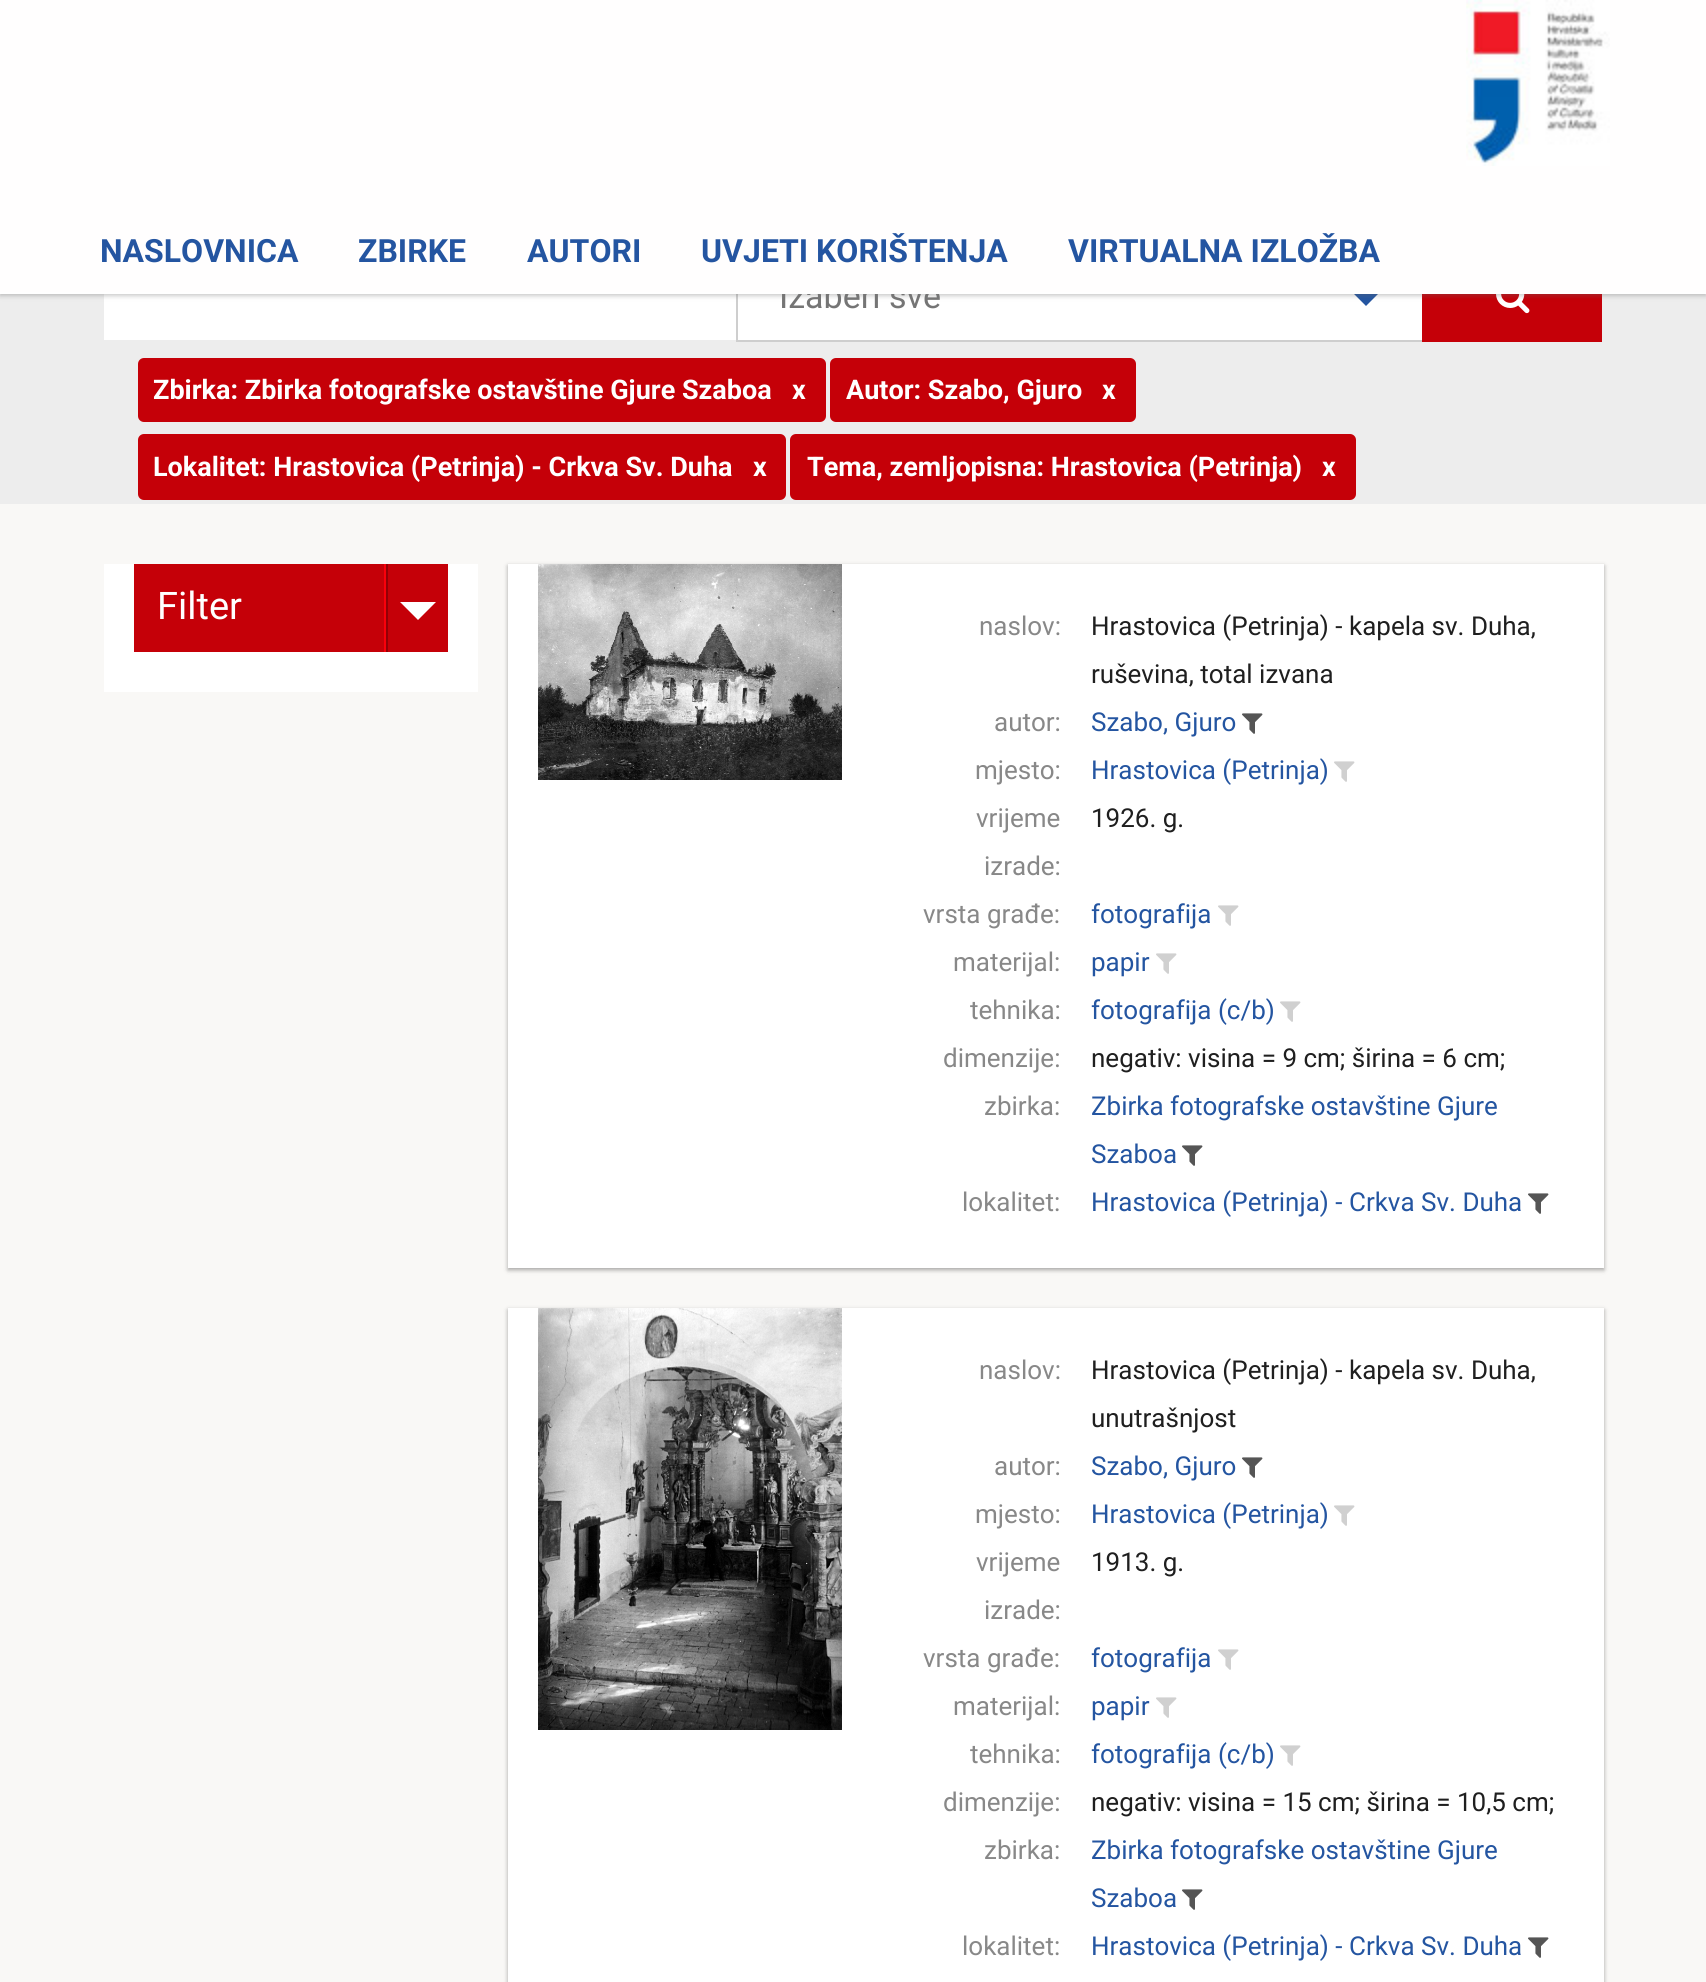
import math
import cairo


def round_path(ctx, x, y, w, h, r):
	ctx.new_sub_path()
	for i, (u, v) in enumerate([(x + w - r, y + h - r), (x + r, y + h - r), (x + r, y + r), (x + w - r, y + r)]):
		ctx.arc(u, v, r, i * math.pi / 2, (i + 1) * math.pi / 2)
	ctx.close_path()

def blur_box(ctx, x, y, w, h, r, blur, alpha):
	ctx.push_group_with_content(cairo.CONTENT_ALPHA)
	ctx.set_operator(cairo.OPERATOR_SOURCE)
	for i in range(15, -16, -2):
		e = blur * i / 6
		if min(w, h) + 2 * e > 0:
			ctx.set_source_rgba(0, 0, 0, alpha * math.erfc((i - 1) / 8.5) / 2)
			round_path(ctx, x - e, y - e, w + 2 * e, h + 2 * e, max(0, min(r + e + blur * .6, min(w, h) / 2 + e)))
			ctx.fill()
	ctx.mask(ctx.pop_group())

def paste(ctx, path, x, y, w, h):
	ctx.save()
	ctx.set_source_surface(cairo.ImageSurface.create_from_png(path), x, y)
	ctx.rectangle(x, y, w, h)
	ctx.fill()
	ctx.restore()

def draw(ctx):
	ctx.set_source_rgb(0.973, 0.969, 0.961)
	ctx.paint()
	ctx.set_source_rgb(0.929, 0.929, 0.929)
	ctx.rectangle(0, 294, 1706, 210)
	ctx.fill()
	ctx.set_source_rgb(1, 1, 1)
	ctx.rectangle(104, 294, 632, 46)
	ctx.rectangle(738, 294, 684, 46)
	ctx.fill()
	ctx.rectangle(737, 249, 686, 92)
	ctx.set_source_rgb(0.808, 0.808, 0.808)
	ctx.stroke()
	ctx.set_source_rgb(0.141, 0.333, 0.631)
	ctx.new_path()
	ctx.move_to(1348, 288)
	ctx.line_to(1384, 288)
	ctx.line_to(1366, 306)
	ctx.close_path()
	ctx.fill()
	ctx.set_source_rgb(0.773, 0, 0.035)
	ctx.rectangle(1422, 294, 180, 48)
	ctx.fill()
	paste(ctx, 'media/2.png', 1496, 294, 34, 20)
	ctx.set_source_rgb(0.392, 0.392, 0.392)
	blur_box(ctx, 0, 2, 1706, 294, 0, 2, 0.24)
	blur_box(ctx, 0, 2, 1706, 294, 0, 3, 0.12)
	ctx.select_font_face('Roboto')
	ctx.set_font_size(34)
	ctx.set_source_rgb(0.459, 0.459, 0.459)
	ctx.move_to(779, 308)
	ctx.show_text('Izaberi sve')
	ctx.set_source_rgb(1, 0.996, 0.996)
	ctx.rectangle(0, 0, 1706, 292)
	ctx.fill()
	ctx.set_source_rgb(1, 1, 1)
	ctx.rectangle(0, 292, 1706, 2)
	ctx.fill()
	paste(ctx, 'media/1.png', 1466, 0, 144, 166)
	ctx.select_font_face('Roboto', cairo.FONT_SLANT_NORMAL, cairo.FONT_WEIGHT_BOLD)
	ctx.set_font_size(32)
	ctx.set_source_rgb(0.141, 0.333, 0.631)
	for x, y, s in [
		(100, 262, 'NASLOVNICA'),
		(358, 262, 'ZBIRKE'),
		(527, 262, 'AUTORI'),
		(701, 262, 'UVJETI KORIŠTENJA'),
		(1068, 262, 'VIRTUALNA IZLOŽBA'),
	]:
		ctx.move_to(x, y)
		ctx.show_text(s)
	ctx.set_source_rgb(0.773, 0, 0.035)
	round_path(ctx, 138, 358, 688, 64, 6)
	ctx.fill()
	ctx.set_font_size(27)
	ctx.set_source_rgb(1, 1, 1)
	ctx.move_to(153, 399)
	ctx.show_text('Zbirka: Zbirka fotografske ostavštine Gjure Szaboa')
	ctx.move_to(792, 399)
	ctx.show_text('x')
	ctx.set_source_rgb(0.773, 0, 0.035)
	round_path(ctx, 830, 358, 306, 64, 6)
	ctx.fill()
	ctx.set_source_rgb(1, 1, 1)
	ctx.move_to(846, 399)
	ctx.show_text('Autor: Szabo, Gjuro')
	ctx.move_to(1102, 399)
	ctx.show_text('x')
	ctx.set_source_rgb(0.773, 0, 0.035)
	round_path(ctx, 138, 434, 648, 66, 6)
	ctx.fill()
	ctx.set_source_rgb(1, 1, 1)
	ctx.move_to(153, 476)
	ctx.show_text('Lokalitet: Hrastovica (Petrinja) - Crkva Sv. Duha')
	ctx.move_to(753, 476)
	ctx.show_text('x')
	ctx.set_source_rgb(0.773, 0, 0.035)
	round_path(ctx, 790, 434, 566, 66, 6)
	ctx.fill()
	ctx.set_source_rgb(1, 1, 1)
	ctx.move_to(807, 476)
	ctx.show_text('Tema, zemljopisna: Hrastovica (Petrinja)')
	ctx.move_to(1322, 476)
	ctx.show_text('x')
	ctx.rectangle(104, 564, 374, 128)
	ctx.fill()
	ctx.set_source_rgb(0.773, 0, 0.035)
	ctx.rectangle(134, 564, 314, 88)
	ctx.fill()
	ctx.set_source_rgb(0.973, 0, 0.043)
	ctx.rectangle(384, 564, 2, 88)
	ctx.fill()
	ctx.select_font_face('Roboto')
	ctx.set_font_size(38)
	ctx.set_source_rgb(1, 1, 1)
	ctx.move_to(157, 619)
	ctx.show_text('Filter')
	ctx.set_source_rgb(0.573, 0, 0.027)
	ctx.rectangle(386, 564, 2, 88)
	ctx.fill()
	ctx.set_source_rgb(1, 1, 1)
	ctx.new_path()
	ctx.move_to(400, 602)
	ctx.line_to(436, 602)
	ctx.line_to(418, 620)
	ctx.close_path()
	ctx.fill()
	ctx.set_source_rgb(0, 0, 0)
	blur_box(ctx, 508, 566, 1096, 704, 0, 2, 0.24)
	blur_box(ctx, 508, 566, 1096, 704, 0, 3, 0.12)
	ctx.set_source_rgb(1, 1, 1)
	ctx.rectangle(508, 564, 1096, 704)
	ctx.fill()
	paste(ctx, 'media/3.png', 538, 564, 304, 216)
	ctx.set_font_size(26)
	ctx.set_source_rgb(0.533, 0.533, 0.533)
	ctx.move_to(979, 635)
	ctx.show_text('naslov:')
	ctx.set_source_rgb(0.122, 0.122, 0.122)
	ctx.move_to(1091, 635)
	ctx.show_text('Hrastovica (Petrinja) - kapela sv. Duha,')
	ctx.move_to(1091, 683)
	ctx.show_text('ruševina, total izvana')
	ctx.set_source_rgb(0.533, 0.533, 0.533)
	ctx.move_to(994, 731)
	ctx.show_text('autor:')
	ctx.set_source_rgb(0.141, 0.333, 0.631)
	ctx.move_to(1091, 731)
	ctx.show_text('Szabo, Gjuro')
	paste(ctx, 'media/4.png', 1242, 713, 21, 21)
	ctx.set_source_rgb(0.533, 0.533, 0.533)
	ctx.move_to(975, 779)
	ctx.show_text('mjesto:')
	ctx.set_source_rgb(0.141, 0.333, 0.631)
	ctx.move_to(1091, 779)
	ctx.show_text('Hrastovica (Petrinja)')
	paste(ctx, 'media/5.png', 1334, 761, 21, 21)
	ctx.set_source_rgb(0.533, 0.533, 0.533)
	ctx.move_to(976, 827)
	ctx.show_text('vrijeme')
	ctx.move_to(984, 875)
	ctx.show_text('izrade:')
	ctx.set_source_rgb(0.122, 0.122, 0.122)
	ctx.move_to(1091, 827)
	ctx.show_text('1926. g.')
	ctx.set_source_rgb(0.533, 0.533, 0.533)
	ctx.move_to(923, 923)
	ctx.show_text('vrsta građe:')
	ctx.set_source_rgb(0.141, 0.333, 0.631)
	ctx.move_to(1091, 923)
	ctx.show_text('fotografija')
	paste(ctx, 'media/5.png', 1218, 905, 21, 21)
	ctx.set_source_rgb(0.533, 0.533, 0.533)
	ctx.move_to(953, 971)
	ctx.show_text('materijal:')
	ctx.set_source_rgb(0.141, 0.333, 0.631)
	ctx.move_to(1091, 971)
	ctx.show_text('papir')
	paste(ctx, 'media/5.png', 1156, 953, 21, 21)
	ctx.set_source_rgb(0.533, 0.533, 0.533)
	ctx.move_to(970, 1019)
	ctx.show_text('tehnika:')
	ctx.set_source_rgb(0.141, 0.333, 0.631)
	ctx.move_to(1091, 1019)
	ctx.show_text('fotografija (c/b)')
	paste(ctx, 'media/5.png', 1280, 1001, 21, 21)
	ctx.set_source_rgb(0.533, 0.533, 0.533)
	ctx.move_to(943, 1067)
	ctx.show_text('dimenzije:')
	ctx.set_source_rgb(0.122, 0.122, 0.122)
	ctx.move_to(1091, 1067)
	ctx.show_text('negativ: visina = 9 cm; širina = 6 cm;')
	ctx.set_source_rgb(0.533, 0.533, 0.533)
	ctx.move_to(984, 1115)
	ctx.show_text('zbirka:')
	ctx.set_source_rgb(0.141, 0.333, 0.631)
	ctx.move_to(1091, 1115)
	ctx.show_text('Zbirka fotografske ostavštine Gjure')
	ctx.move_to(1091, 1163)
	ctx.show_text('Szaboa')
	paste(ctx, 'media/4.png', 1182, 1145, 21, 21)
	ctx.set_source_rgb(0.533, 0.533, 0.533)
	ctx.move_to(962, 1211)
	ctx.show_text('lokalitet:')
	ctx.set_source_rgb(0.141, 0.333, 0.631)
	ctx.move_to(1091, 1211)
	ctx.show_text('Hrastovica (Petrinja) - Crkva Sv. Duha')
	paste(ctx, 'media/4.png', 1528, 1193, 21, 21)
	ctx.set_source_rgb(0, 0, 0)
	blur_box(ctx, 508, 1310, 1096, 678, 0, 2, 0.24)
	blur_box(ctx, 508, 1310, 1096, 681, 0, 3, 0.12)
	ctx.set_source_rgb(1, 1, 1)
	ctx.rectangle(508, 1308, 1096, 674)
	ctx.fill()
	paste(ctx, 'media/6.png', 538, 1308, 304, 422)
	ctx.set_source_rgb(0.533, 0.533, 0.533)
	ctx.move_to(979, 1379)
	ctx.show_text('naslov:')
	ctx.set_source_rgb(0.122, 0.122, 0.122)
	ctx.move_to(1091, 1379)
	ctx.show_text('Hrastovica (Petrinja) - kapela sv. Duha,')
	ctx.move_to(1091, 1427)
	ctx.show_text('unutrašnjost')
	ctx.set_source_rgb(0.533, 0.533, 0.533)
	ctx.move_to(994, 1475)
	ctx.show_text('autor:')
	ctx.set_source_rgb(0.141, 0.333, 0.631)
	ctx.move_to(1091, 1475)
	ctx.show_text('Szabo, Gjuro')
	paste(ctx, 'media/4.png', 1242, 1457, 21, 21)
	ctx.set_source_rgb(0.533, 0.533, 0.533)
	ctx.move_to(975, 1523)
	ctx.show_text('mjesto:')
	ctx.set_source_rgb(0.141, 0.333, 0.631)
	ctx.move_to(1091, 1523)
	ctx.show_text('Hrastovica (Petrinja)')
	paste(ctx, 'media/5.png', 1334, 1505, 21, 21)
	ctx.set_source_rgb(0.533, 0.533, 0.533)
	ctx.move_to(976, 1571)
	ctx.show_text('vrijeme')
	ctx.move_to(984, 1619)
	ctx.show_text('izrade:')
	ctx.set_source_rgb(0.122, 0.122, 0.122)
	ctx.move_to(1091, 1571)
	ctx.show_text('1913. g.')
	ctx.set_source_rgb(0.533, 0.533, 0.533)
	ctx.move_to(923, 1667)
	ctx.show_text('vrsta građe:')
	ctx.set_source_rgb(0.141, 0.333, 0.631)
	ctx.move_to(1091, 1667)
	ctx.show_text('fotografija')
	paste(ctx, 'media/5.png', 1218, 1649, 21, 21)
	ctx.set_source_rgb(0.533, 0.533, 0.533)
	ctx.move_to(953, 1715)
	ctx.show_text('materijal:')
	ctx.set_source_rgb(0.141, 0.333, 0.631)
	ctx.move_to(1091, 1715)
	ctx.show_text('papir')
	paste(ctx, 'media/5.png', 1156, 1697, 21, 21)
	ctx.set_source_rgb(0.533, 0.533, 0.533)
	ctx.move_to(970, 1763)
	ctx.show_text('tehnika:')
	ctx.set_source_rgb(0.141, 0.333, 0.631)
	ctx.move_to(1091, 1763)
	ctx.show_text('fotografija (c/b)')
	paste(ctx, 'media/5.png', 1280, 1745, 21, 21)
	ctx.set_source_rgb(0.533, 0.533, 0.533)
	ctx.move_to(943, 1811)
	ctx.show_text('dimenzije:')
	ctx.set_source_rgb(0.122, 0.122, 0.122)
	ctx.move_to(1091, 1811)
	ctx.show_text('negativ: visina = 15 cm; širina = 10,5 cm;')
	ctx.set_source_rgb(0.533, 0.533, 0.533)
	ctx.move_to(984, 1859)
	ctx.show_text('zbirka:')
	ctx.set_source_rgb(0.141, 0.333, 0.631)
	ctx.move_to(1091, 1859)
	ctx.show_text('Zbirka fotografske ostavštine Gjure')
	ctx.move_to(1091, 1907)
	ctx.show_text('Szaboa')
	paste(ctx, 'media/4.png', 1182, 1889, 21, 21)
	ctx.set_source_rgb(0.533, 0.533, 0.533)
	ctx.move_to(962, 1955)
	ctx.show_text('lokalitet:')
	ctx.set_source_rgb(0.141, 0.333, 0.631)
	ctx.move_to(1091, 1955)
	ctx.show_text('Hrastovica (Petrinja) - Crkva Sv. Duha')
	paste(ctx, 'media/4.png', 1528, 1937, 21, 21)


surface = cairo.ImageSurface(cairo.FORMAT_RGB24, 1706, 1982)
ctx = cairo.Context(surface)
options = cairo.FontOptions()
options.set_hint_metrics(cairo.HINT_METRICS_OFF)
options.set_hint_style(cairo.HINT_STYLE_NONE)
ctx.set_font_options(options)
ctx.set_miter_limit(4)
draw(ctx)
surface.write_to_png('image.png')
